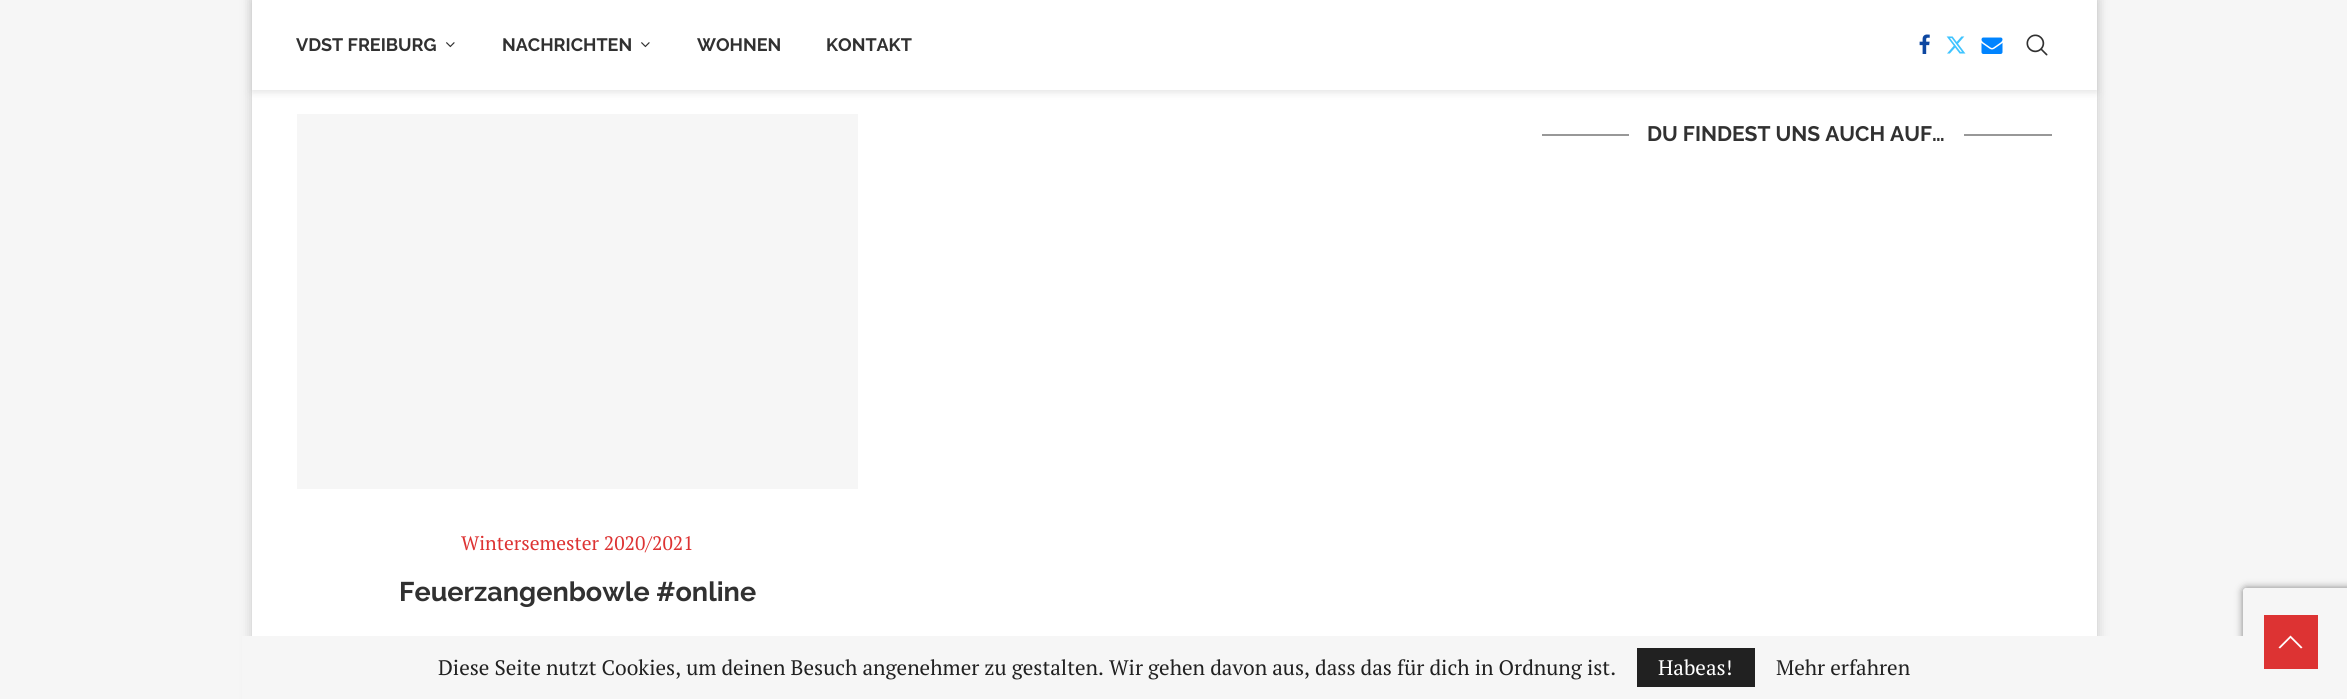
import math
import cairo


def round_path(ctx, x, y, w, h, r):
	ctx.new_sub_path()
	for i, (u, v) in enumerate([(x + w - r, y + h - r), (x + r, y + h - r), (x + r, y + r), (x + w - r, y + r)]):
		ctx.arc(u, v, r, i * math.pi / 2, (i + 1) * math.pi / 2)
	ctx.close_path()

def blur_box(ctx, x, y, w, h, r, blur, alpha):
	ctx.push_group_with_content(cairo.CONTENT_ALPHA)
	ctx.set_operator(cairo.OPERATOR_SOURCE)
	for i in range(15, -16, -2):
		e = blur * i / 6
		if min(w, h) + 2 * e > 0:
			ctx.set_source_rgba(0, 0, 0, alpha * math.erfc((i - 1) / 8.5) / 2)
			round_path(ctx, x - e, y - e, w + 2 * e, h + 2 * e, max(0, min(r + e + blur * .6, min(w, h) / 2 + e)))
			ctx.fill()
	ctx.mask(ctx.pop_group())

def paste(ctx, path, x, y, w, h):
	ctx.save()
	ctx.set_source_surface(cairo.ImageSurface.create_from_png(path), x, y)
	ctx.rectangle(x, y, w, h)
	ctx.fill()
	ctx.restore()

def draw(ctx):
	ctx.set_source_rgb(0.961, 0.961, 0.961)
	ctx.paint()
	ctx.set_source_rgb(0, 0, 0)
	blur_box(ctx, 252, -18, 1845, 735, 0, 6, 0.2)
	ctx.set_source_rgb(1, 1, 1)
	ctx.rectangle(252, 90, 1845, 546)
	ctx.fill()
	ctx.set_source_rgb(0.745, 0.745, 0.745)
	blur_box(ctx, 252, 2, 1845, 90, 0, 4, 0.46)
	ctx.set_source_rgb(1, 1, 1)
	ctx.rectangle(252, 0, 1845, 90)
	ctx.fill()
	ctx.select_font_face('Raleway', cairo.FONT_SLANT_NORMAL, cairo.FONT_WEIGHT_BOLD)
	ctx.set_font_size(18)
	ctx.set_source_rgb(0.192, 0.192, 0.192)
	ctx.move_to(296, 51)
	ctx.show_text('VDST FREIBURG')
	paste(ctx, 'media/1.png', 446, 42, 9, 6)
	ctx.move_to(502, 51)
	ctx.show_text('NACHRICHTEN')
	paste(ctx, 'media/2.png', 641, 42, 9, 6)
	ctx.move_to(697, 51)
	ctx.show_text('WOHNEN')
	ctx.move_to(826, 51)
	ctx.show_text('KONTAKT')
	paste(ctx, 'media/3.png', 1919, 34, 11, 20)
	paste(ctx, 'media/4.png', 1946, 36, 20, 18)
	paste(ctx, 'media/5.png', 1981, 37, 22, 17)
	paste(ctx, 'media/6.png', 2026, 34, 22, 22)
	ctx.set_source_rgb(0.596, 0.596, 0.596)
	ctx.rectangle(1542, 134, 87, 2)
	ctx.fill()
	ctx.set_font_size(21)
	ctx.set_source_rgb(0.192, 0.192, 0.192)
	ctx.move_to(1647, 141)
	ctx.show_text('DU FINDEST UNS AUCH AUF…')
	ctx.set_source_rgb(0.596, 0.596, 0.596)
	ctx.rectangle(1964, 134, 88, 2)
	ctx.fill()
	ctx.set_source_rgb(0.961, 0.961, 0.961)
	ctx.rectangle(297, 114, 561, 375)
	ctx.fill()
	ctx.select_font_face('PT Serif')
	ctx.set_font_size(19.5)
	ctx.set_source_rgb(0.867, 0.2, 0.2)
	ctx.move_to(461, 550)
	ctx.show_text('Wintersemester 2020/2021')
	ctx.select_font_face('Raleway', cairo.FONT_SLANT_NORMAL, cairo.FONT_WEIGHT_BOLD)
	ctx.set_font_size(27)
	ctx.set_source_rgb(0.192, 0.192, 0.192)
	ctx.move_to(399, 601)
	ctx.show_text('Feuerzangenbowle #online')
	ctx.save()
	ctx.set_fill_rule(cairo.FILL_RULE_EVEN_ODD)
	ctx.new_path()
	ctx.move_to(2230, 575)
	ctx.line_to(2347, 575)
	ctx.line_to(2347, 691)
	ctx.line_to(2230, 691)
	ctx.close_path()
	ctx.move_to(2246, 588)
	ctx.line_to(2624, 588)
	ctx.curve_to(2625.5, 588, 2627, 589.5, 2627, 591)
	ctx.line_to(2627, 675)
	ctx.curve_to(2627, 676.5, 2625.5, 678, 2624, 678)
	ctx.line_to(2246, 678)
	ctx.curve_to(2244.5, 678, 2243, 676.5, 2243, 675)
	ctx.line_to(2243, 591)
	ctx.curve_to(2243, 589.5, 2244.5, 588, 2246, 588)
	ctx.close_path()
	ctx.clip()
	ctx.set_source_rgb(0.502, 0.502, 0.502)
	blur_box(ctx, 2243, 588, 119, 90, 3, 4, 1)
	ctx.restore()
	ctx.set_source_rgb(0.961, 0.961, 0.961)
	ctx.rectangle(242, 636, 2105, 63)
	ctx.fill()
	ctx.select_font_face('PT Serif')
	ctx.set_font_size(21)
	ctx.set_source_rgb(0.129, 0.129, 0.129)
	ctx.move_to(438, 675)
	ctx.show_text('Diese Seite nutzt Cookies, um deinen Besuch angenehmer zu gestalten. Wir gehen davon aus, dass das für dich in Ordnung ist.')
	ctx.rectangle(1637, 648, 118, 39)
	ctx.fill()
	ctx.set_source_rgb(1, 1, 1)
	ctx.move_to(1658, 675)
	ctx.show_text('Habeas!')
	ctx.set_source_rgb(0.129, 0.129, 0.129)
	ctx.move_to(1776, 675)
	ctx.show_text('Mehr erfahren')
	ctx.set_source_rgb(0.867, 0.2, 0.2)
	ctx.rectangle(2264, 615, 54, 54)
	ctx.fill()
	ctx.set_source_rgb(1, 1, 1)
	ctx.new_path()
	ctx.move_to(2290.5, 635.5)
	ctx.line_to(2278.5, 647.5)
	ctx.line_to(2280, 648.5)
	ctx.line_to(2290.5, 638)
	ctx.line_to(2301, 648.5)
	ctx.line_to(2302.5, 647.5)
	ctx.close_path()
	ctx.fill()


surface = cairo.ImageSurface(cairo.FORMAT_RGB24, 2347, 699)
ctx = cairo.Context(surface)
options = cairo.FontOptions()
options.set_hint_metrics(cairo.HINT_METRICS_OFF)
options.set_hint_style(cairo.HINT_STYLE_NONE)
ctx.set_font_options(options)
ctx.set_miter_limit(4)
draw(ctx)
surface.write_to_png('image.png')
